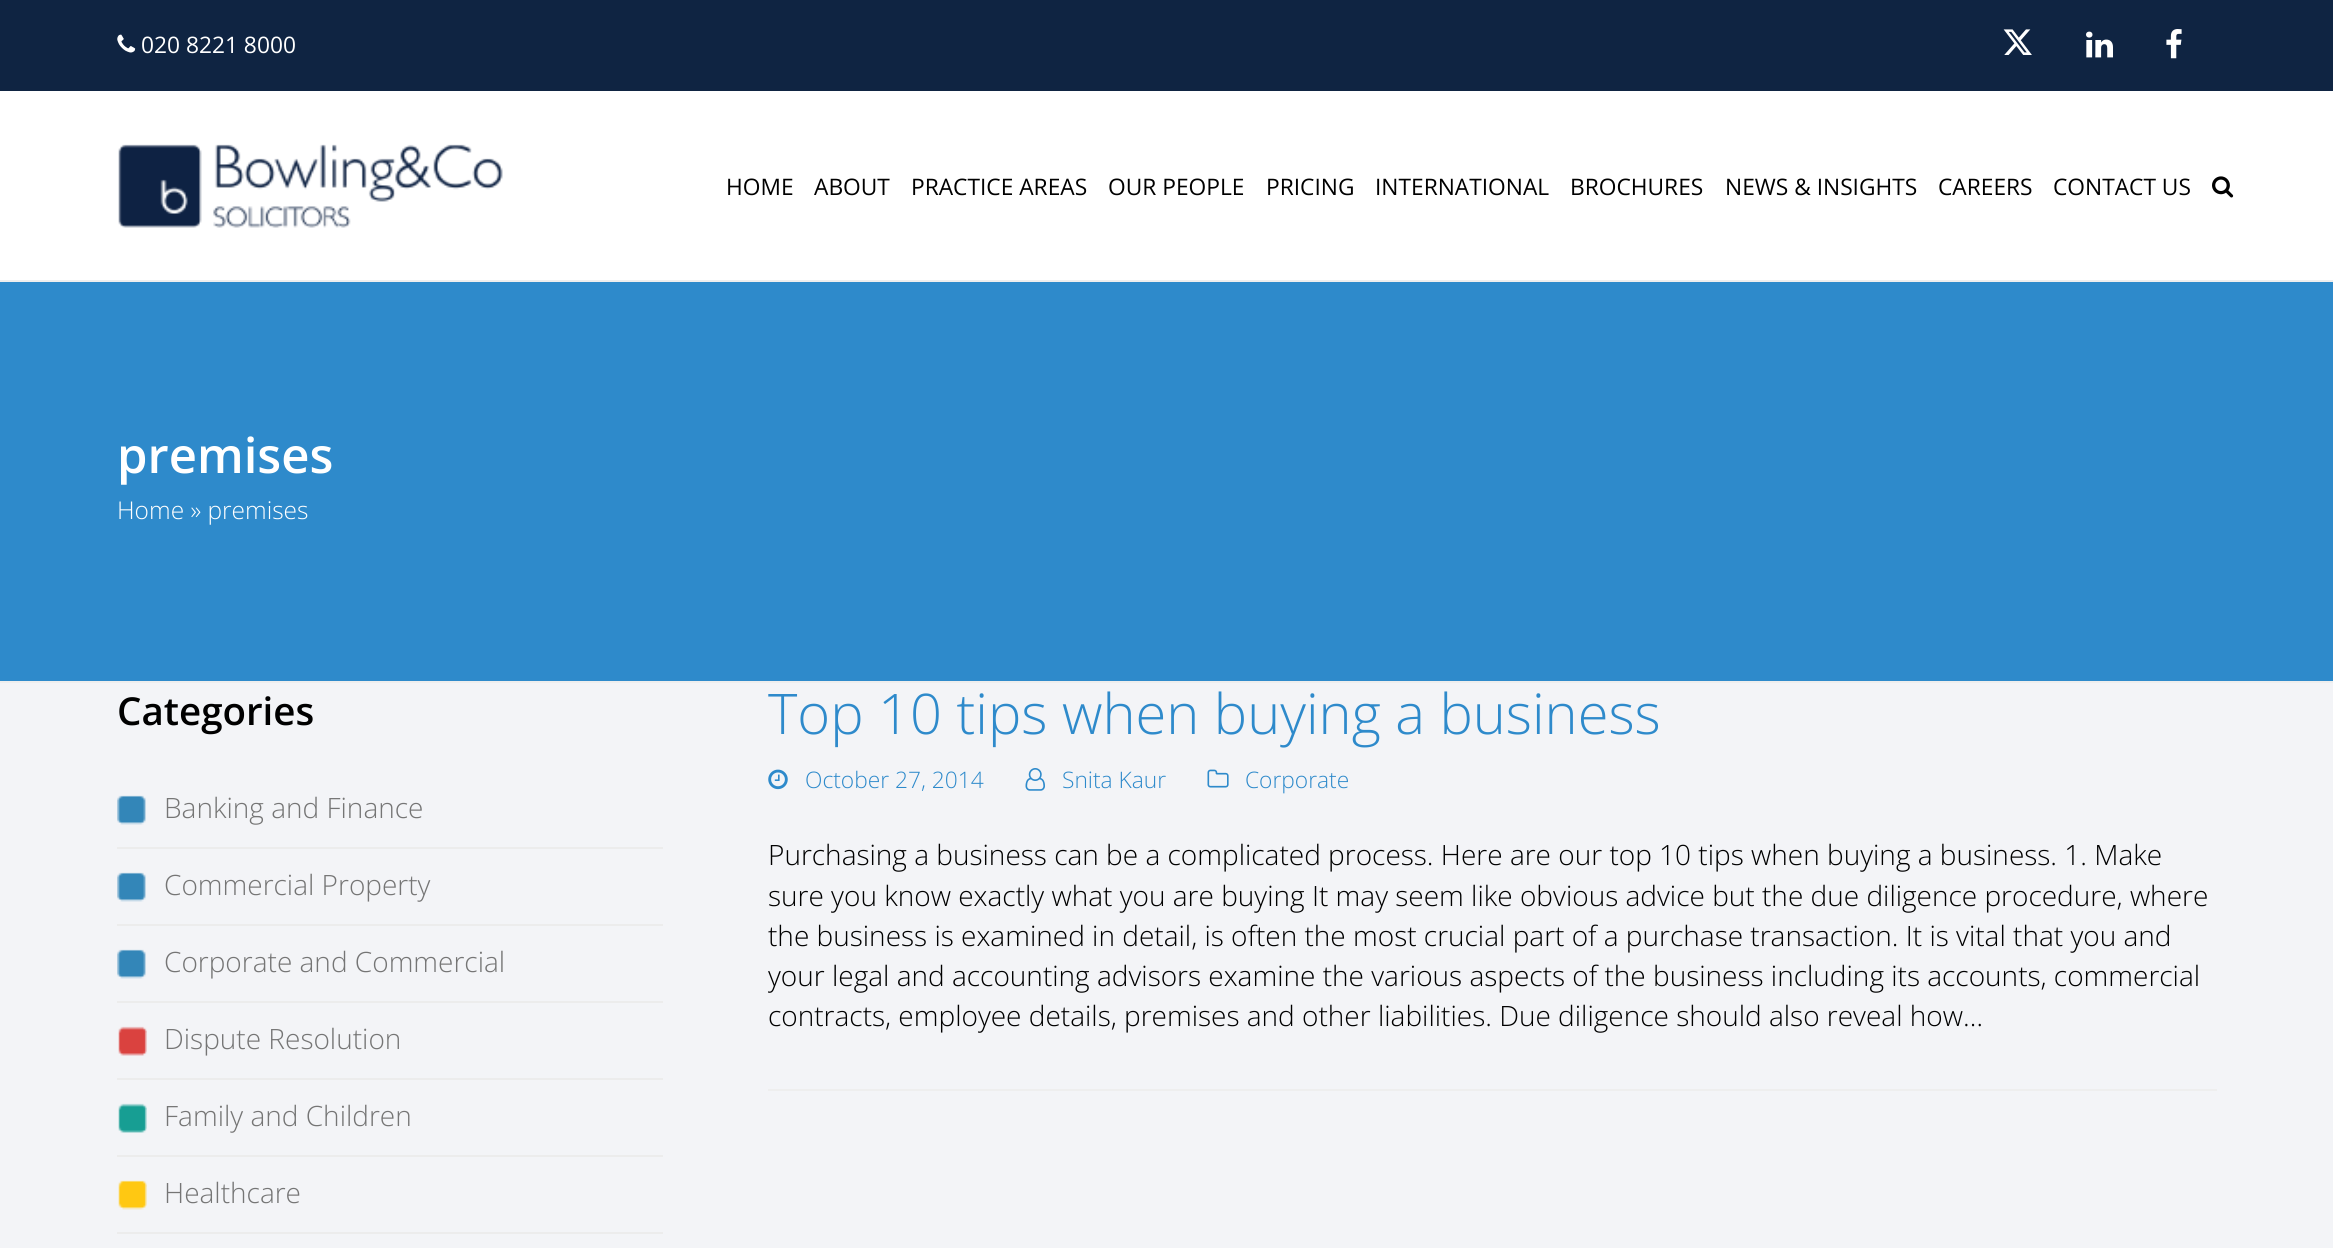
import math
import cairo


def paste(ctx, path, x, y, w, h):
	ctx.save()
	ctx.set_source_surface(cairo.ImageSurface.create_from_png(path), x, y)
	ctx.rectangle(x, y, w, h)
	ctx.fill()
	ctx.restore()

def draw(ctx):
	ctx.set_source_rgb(1, 1, 1)
	ctx.paint()
	ctx.set_source_rgb(0.059, 0.141, 0.259)
	ctx.rectangle(0, 0, 2333, 91)
	ctx.fill()
	paste(ctx, 'media/1.png', 117, 34, 19, 19)
	ctx.select_font_face('Open Sans')
	ctx.set_font_size(22.75)
	ctx.set_source_rgb(1, 1, 1)
	ctx.move_to(141, 53)
	ctx.show_text('020 8221 8000')
	paste(ctx, 'media/2.png', 2003, 29, 29, 26)
	paste(ctx, 'media/3.png', 2086, 31, 27, 27)
	paste(ctx, 'media/4.png', 2166, 29, 16, 30)
	paste(ctx, 'media/5.png', 118, 144, 385, 84)
	ctx.set_source_rgb(0, 0, 0)
	for x, y, s in [
		(726, 195, 'HOME'),
		(814, 195, 'ABOUT'),
		(911, 195, 'PRACTICE AREAS'),
		(1108, 195, 'OUR PEOPLE'),
		(1266, 195, 'PRICING'),
		(1375, 195, 'INTERNATIONAL'),
		(1570, 195, 'BROCHURES'),
		(1725, 195, 'NEWS & INSIGHTS'),
		(1938, 195, 'CAREERS'),
		(2053, 195, 'CONTACT US'),
	]:
		ctx.move_to(x, y)
		ctx.show_text(s)
	paste(ctx, 'media/6.png', 2212, 176, 22, 22)
	ctx.set_source_rgb(0.953, 0.957, 0.965)
	ctx.rectangle(0, 683, 2333, 565)
	ctx.fill()
	ctx.set_source_rgb(0.18, 0.541, 0.796)
	ctx.rectangle(0, 282, 2333, 399)
	ctx.fill()
	ctx.set_source_rgb(0.933, 0.933, 0.933)
	ctx.rectangle(0, 280, 2333, 2)
	ctx.rectangle(0, 681, 2333, 2)
	ctx.fill()
	ctx.select_font_face('Open Sans SemiBold')
	ctx.set_font_size(49)
	ctx.set_source_rgb(1, 1, 1)
	ctx.move_to(117, 473)
	ctx.show_text('premises')
	ctx.select_font_face('Open Sans Light')
	ctx.set_font_size(24.5)
	ctx.move_to(117, 519)
	ctx.show_text('Home » premises')
	ctx.select_font_face('Open Sans SemiBold')
	ctx.set_font_size(38.5)
	ctx.set_source_rgb(0, 0, 0)
	ctx.move_to(117, 725)
	ctx.show_text('Categories')
	paste(ctx, 'media/7.png', 117, 795, 29, 30)
	ctx.select_font_face('Open Sans Light')
	ctx.set_font_size(28)
	ctx.set_source_rgb(0.459, 0.459, 0.459)
	ctx.move_to(164, 818)
	ctx.show_text('Banking and Finance')
	ctx.set_source_rgb(0.922, 0.922, 0.922)
	ctx.rectangle(117, 847, 546, 2)
	ctx.fill()
	paste(ctx, 'media/7.png', 117, 872, 29, 30)
	ctx.set_source_rgb(0.459, 0.459, 0.459)
	ctx.move_to(164, 895)
	ctx.show_text('Commercial Property')
	ctx.set_source_rgb(0.922, 0.922, 0.922)
	ctx.rectangle(117, 924, 546, 2)
	ctx.fill()
	paste(ctx, 'media/7.png', 117, 949, 29, 30)
	ctx.set_source_rgb(0.459, 0.459, 0.459)
	ctx.move_to(164, 972)
	ctx.show_text('Corporate and Commercial')
	ctx.set_source_rgb(0.922, 0.922, 0.922)
	ctx.rectangle(117, 1001, 546, 2)
	ctx.fill()
	paste(ctx, 'media/8.png', 118, 1026, 29, 30)
	ctx.set_source_rgb(0.459, 0.459, 0.459)
	ctx.move_to(164, 1049)
	ctx.show_text('Dispute Resolution')
	ctx.set_source_rgb(0.922, 0.922, 0.922)
	ctx.rectangle(117, 1078, 546, 2)
	ctx.fill()
	paste(ctx, 'media/9.png', 118, 1103, 29, 30)
	ctx.set_source_rgb(0.459, 0.459, 0.459)
	ctx.move_to(164, 1126)
	ctx.show_text('Family and Children')
	ctx.set_source_rgb(0.922, 0.922, 0.922)
	ctx.rectangle(117, 1155, 546, 2)
	ctx.fill()
	paste(ctx, 'media/10.png', 118, 1180, 29, 30)
	ctx.set_source_rgb(0.459, 0.459, 0.459)
	ctx.move_to(164, 1203)
	ctx.show_text('Healthcare')
	ctx.set_source_rgb(0.922, 0.922, 0.922)
	ctx.rectangle(117, 1232, 546, 2)
	ctx.fill()
	ctx.set_font_size(56)
	ctx.set_source_rgb(0.18, 0.541, 0.796)
	ctx.move_to(768, 734)
	ctx.show_text('Top 10 tips when buying a business')
	paste(ctx, 'media/11.png', 768, 769, 20, 21)
	ctx.set_font_size(22.75)
	ctx.move_to(805, 788)
	ctx.show_text('October 27, 2014')
	paste(ctx, 'media/12.png', 1025, 768, 20, 23)
	ctx.move_to(1062, 788)
	ctx.show_text('Snita Kaur')
	paste(ctx, 'media/13.png', 1207, 769, 22, 19)
	ctx.move_to(1245, 788)
	ctx.show_text('Corporate')
	ctx.set_font_size(28)
	ctx.set_source_rgb(0, 0, 0)
	for x, y, s in [
		(768, 865, 'Purchasing a business can be a complicated process. Here are our top 10 tips when buying a business. 1. Make'),
		(768, 906, 'sure you know exactly what you are buying It may seem like obvious advice but the due diligence procedure, where'),
		(768, 946, 'the business is examined in detail, is often the most crucial part of a purchase transaction. It is vital that you and'),
		(768, 986, 'your legal and accounting advisors examine the various aspects of the business including its accounts, commercial'),
		(768, 1026, 'contracts, employee details, premises and other liabilities. Due diligence should also reveal how…'),
	]:
		ctx.move_to(x, y)
		ctx.show_text(s)
	ctx.set_source_rgb(0.933, 0.933, 0.933)
	ctx.rectangle(768, 1089, 1449, 2)
	ctx.fill()


surface = cairo.ImageSurface(cairo.FORMAT_RGB24, 2333, 1248)
ctx = cairo.Context(surface)
options = cairo.FontOptions()
options.set_hint_metrics(cairo.HINT_METRICS_OFF)
options.set_hint_style(cairo.HINT_STYLE_NONE)
ctx.set_font_options(options)
ctx.set_miter_limit(4)
draw(ctx)
surface.write_to_png('image.png')
